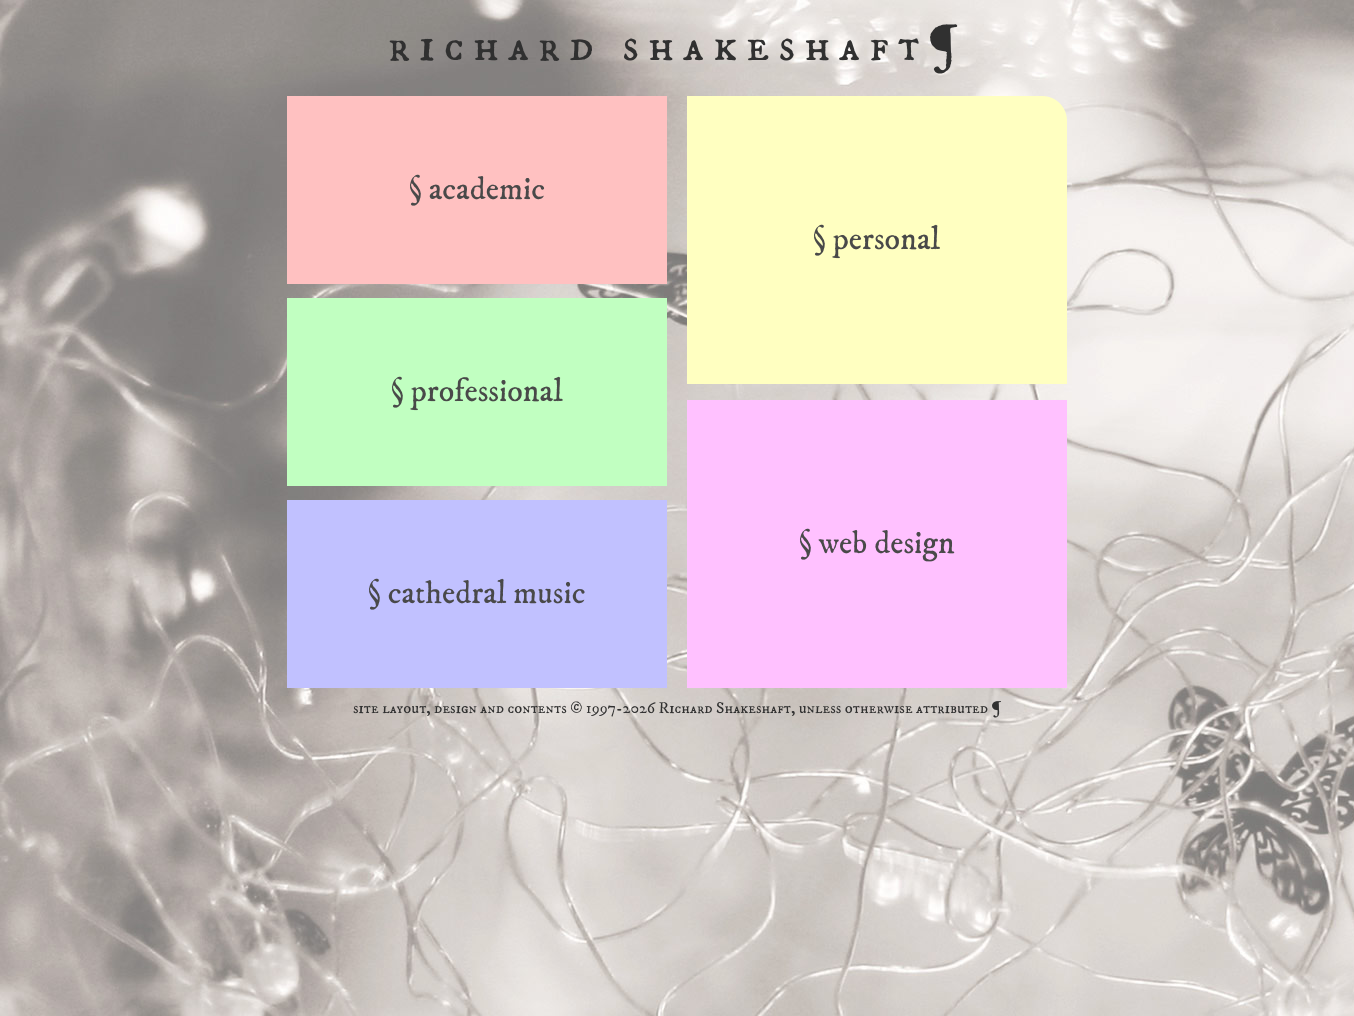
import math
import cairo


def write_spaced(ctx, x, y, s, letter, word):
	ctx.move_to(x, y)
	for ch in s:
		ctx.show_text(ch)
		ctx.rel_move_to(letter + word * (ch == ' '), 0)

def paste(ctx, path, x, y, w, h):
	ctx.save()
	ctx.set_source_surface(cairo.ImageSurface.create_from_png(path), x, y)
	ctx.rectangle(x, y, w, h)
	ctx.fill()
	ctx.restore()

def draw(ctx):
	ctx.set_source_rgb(1, 1, 1)
	ctx.paint()
	paste(ctx, 'media/1.png', 0, 0, 1354, 1016)
	ctx.select_font_face('IM FELL DW Pica SC')
	ctx.set_font_size(48)
	ctx.set_source_rgb(0.188, 0.188, 0.188)
	write_spaced(ctx, 388, 60, 'richard shakeshaft¶', 9, 0)
	ctx.set_source_rgb(1, 0.757, 0.757)
	ctx.rectangle(287, 96, 380, 188)
	ctx.fill()
	ctx.select_font_face('IM FELL DW Pica')
	ctx.set_font_size(32)
	ctx.set_source_rgb(0.286, 0.286, 0.286)
	ctx.move_to(409, 199)
	ctx.show_text('§ academic')
	ctx.set_source_rgb(1, 1, 0.757)
	ctx.new_path()
	ctx.move_to(687, 96)
	ctx.line_to(1042, 96)
	ctx.curve_to(1056, 96, 1067, 107, 1067, 121)
	ctx.line_to(1067, 384)
	ctx.line_to(687, 384)
	ctx.close_path()
	ctx.fill()
	ctx.set_source_rgb(0.286, 0.286, 0.286)
	ctx.move_to(813, 249)
	ctx.show_text('§ personal')
	ctx.set_source_rgb(0.757, 1, 0.757)
	ctx.rectangle(287, 298, 380, 188)
	ctx.fill()
	ctx.set_source_rgb(0.286, 0.286, 0.286)
	ctx.move_to(391, 401)
	ctx.show_text('§ professional')
	ctx.set_source_rgb(1, 0.757, 1)
	ctx.rectangle(687, 400, 380, 288)
	ctx.fill()
	ctx.set_source_rgb(0.286, 0.286, 0.286)
	ctx.move_to(799, 553)
	ctx.show_text('§ web design')
	ctx.set_source_rgb(0.757, 0.757, 1)
	ctx.rectangle(287, 500, 380, 188)
	ctx.fill()
	ctx.set_source_rgb(0.286, 0.286, 0.286)
	ctx.move_to(368, 603)
	ctx.show_text('§ cathedral music')
	ctx.select_font_face('IM FELL DW Pica SC')
	ctx.set_font_size(16)
	ctx.set_source_rgb(0.188, 0.188, 0.188)
	ctx.move_to(353, 713)
	ctx.show_text('site layout, design and contents © 1997-2026 Richard Shakeshaft, unless otherwise attributed ¶')


surface = cairo.ImageSurface(cairo.FORMAT_RGB24, 1354, 1016)
ctx = cairo.Context(surface)
options = cairo.FontOptions()
options.set_hint_metrics(cairo.HINT_METRICS_OFF)
options.set_hint_style(cairo.HINT_STYLE_NONE)
ctx.set_font_options(options)
ctx.set_miter_limit(4)
draw(ctx)
surface.write_to_png('image.png')
